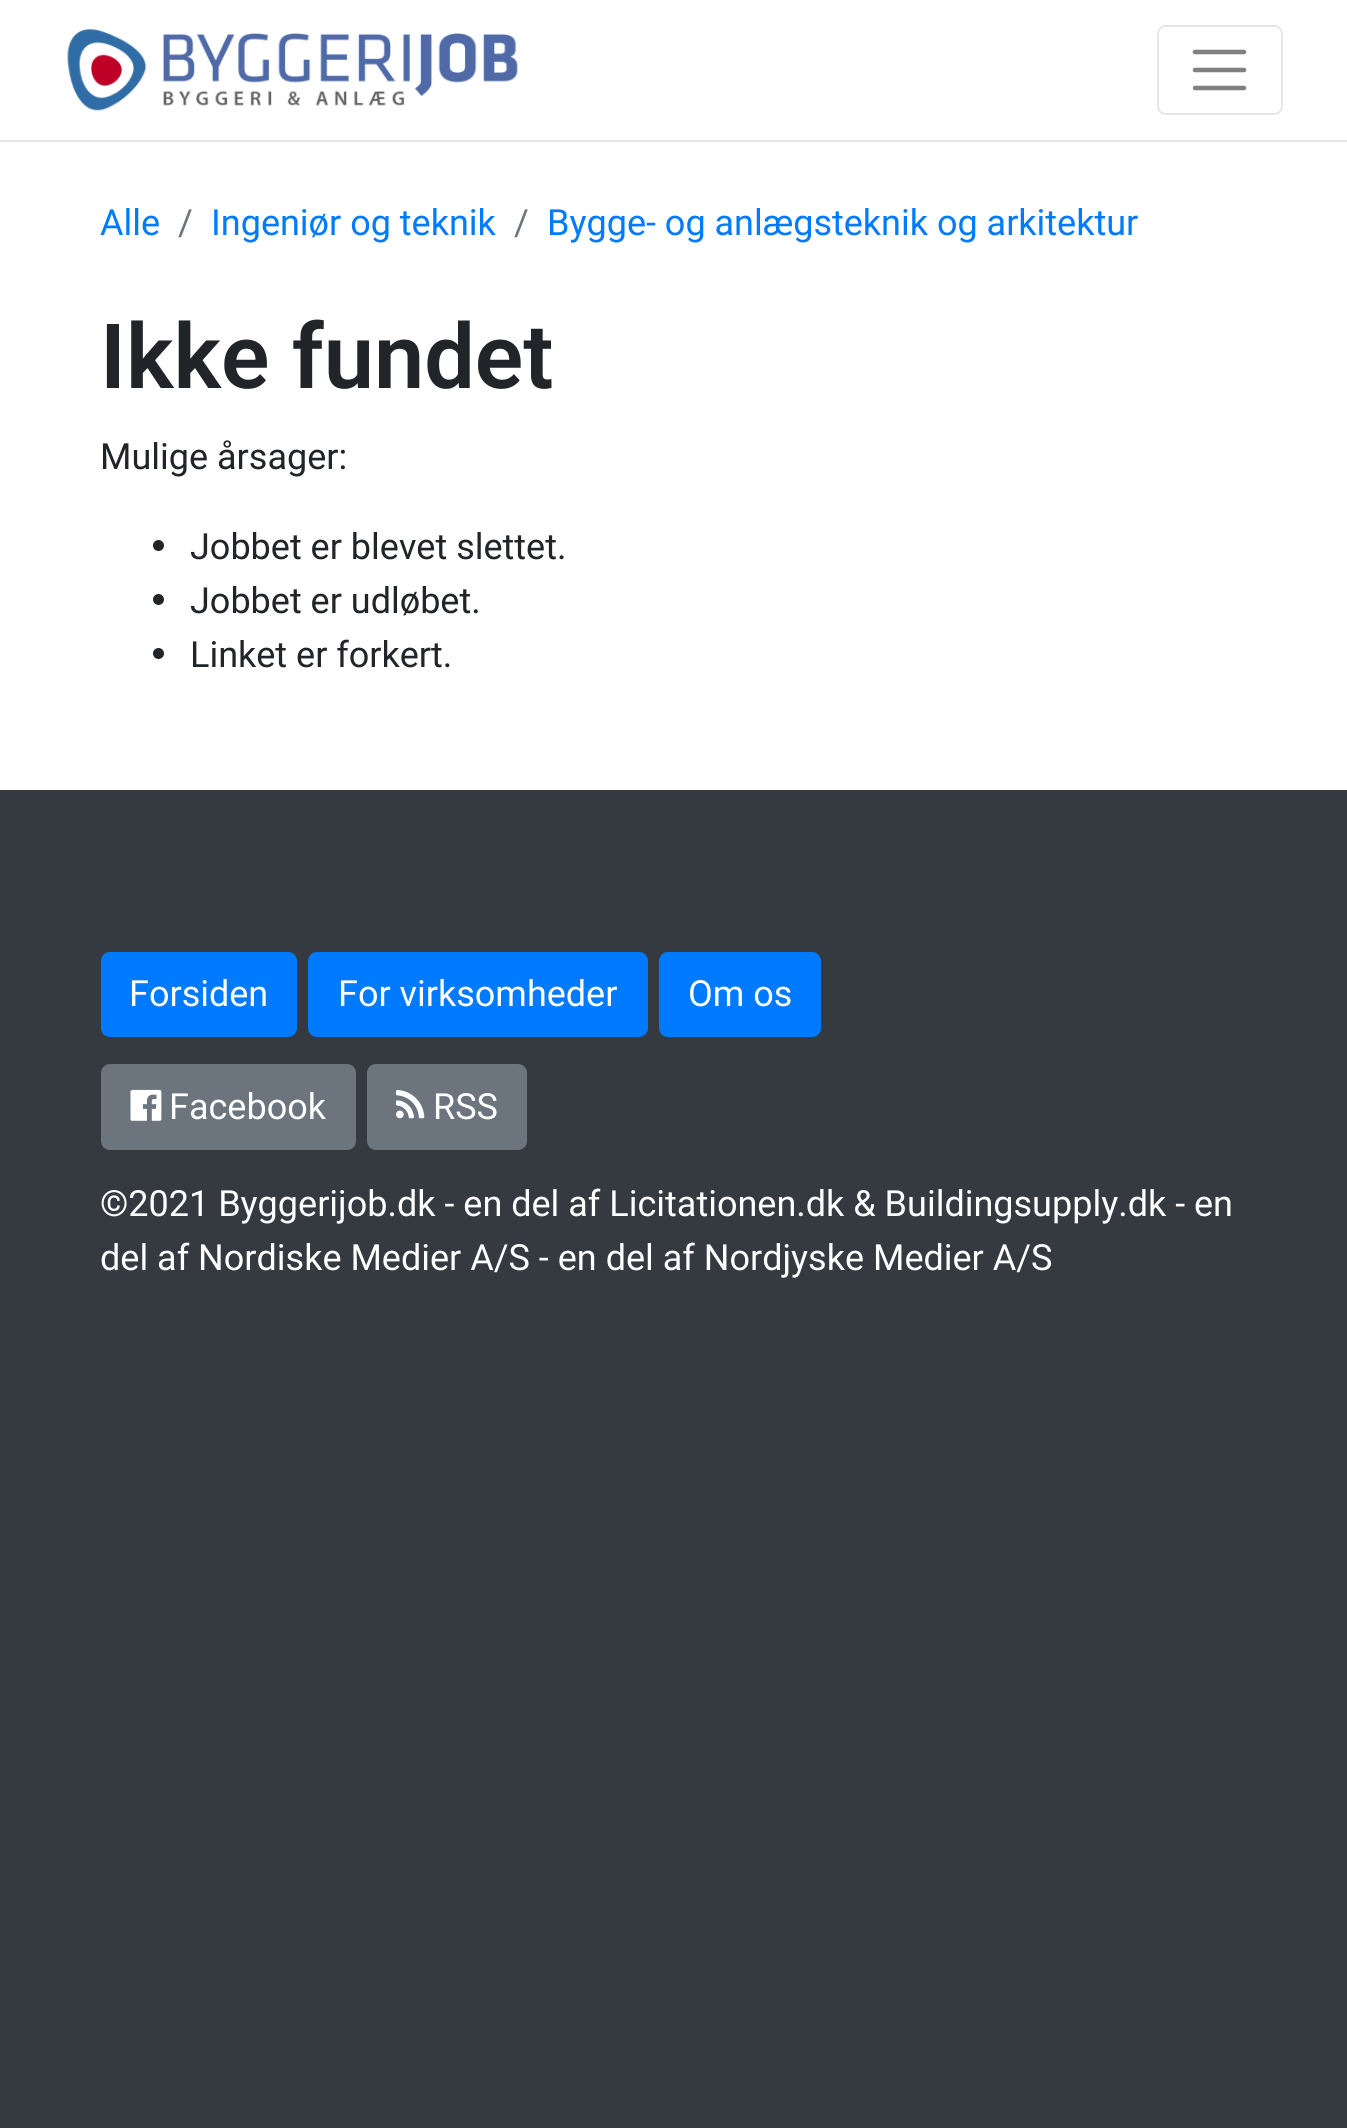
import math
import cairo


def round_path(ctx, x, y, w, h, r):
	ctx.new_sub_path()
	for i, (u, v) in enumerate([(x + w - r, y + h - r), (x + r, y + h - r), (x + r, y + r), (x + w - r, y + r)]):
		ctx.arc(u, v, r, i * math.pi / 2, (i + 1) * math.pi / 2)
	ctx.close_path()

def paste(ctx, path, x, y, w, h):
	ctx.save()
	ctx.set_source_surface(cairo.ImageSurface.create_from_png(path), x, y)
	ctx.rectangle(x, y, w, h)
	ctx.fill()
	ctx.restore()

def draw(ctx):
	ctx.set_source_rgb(0.204, 0.227, 0.251)
	ctx.paint()
	ctx.set_source_rgb(1, 1, 1)
	ctx.rectangle(0, 0, 1347, 790)
	ctx.fill()
	paste(ctx, 'media/1.png', 67, 29, 451, 82)
	round_path(ctx, 1158, 26, 124, 88, 8)
	ctx.set_source_rgb(0.902, 0.902, 0.902)
	ctx.stroke()
	ctx.new_path()
	ctx.move_to(1195, 52)
	ctx.line_to(1244, 52)
	ctx.move_to(1195, 70)
	ctx.line_to(1244, 70)
	ctx.move_to(1195, 88)
	ctx.line_to(1244, 88)
	ctx.set_source_rgb(0.502, 0.502, 0.502)
	ctx.set_line_width(4.5)
	ctx.set_line_cap(cairo.LINE_CAP_ROUND)
	ctx.stroke()
	ctx.set_source_rgb(0.902, 0.902, 0.902)
	ctx.rectangle(0, 140, 1347, 2)
	ctx.fill()
	ctx.select_font_face('Roboto')
	ctx.set_font_size(36)
	ctx.set_source_rgb(0, 0.482, 1)
	ctx.move_to(100, 235)
	ctx.show_text('Alle')
	ctx.set_source_rgb(0.424, 0.459, 0.49)
	ctx.move_to(178, 235)
	ctx.show_text('/')
	ctx.set_source_rgb(0, 0.482, 1)
	ctx.move_to(211, 235)
	ctx.show_text('Ingeniør og teknik')
	ctx.set_source_rgb(0.424, 0.459, 0.49)
	ctx.move_to(514, 235)
	ctx.show_text('/')
	ctx.set_source_rgb(0, 0.482, 1)
	ctx.move_to(547, 235)
	ctx.show_text('Bygge- og anlægsteknik og arkitektur')
	ctx.select_font_face('Roboto SemiBold')
	ctx.set_font_size(90)
	ctx.set_source_rgb(0.129, 0.145, 0.161)
	ctx.move_to(100, 388)
	ctx.show_text('Ikke fundet')
	ctx.select_font_face('Roboto')
	ctx.set_font_size(36)
	ctx.move_to(100, 469)
	ctx.show_text('Mulige årsager:')
	ctx.new_path()
	ctx.arc(158.5, 545.5, 5.5, 0, 2 * math.pi)
	ctx.fill()
	ctx.move_to(190, 559)
	ctx.show_text('Jobbet er blevet slettet.')
	ctx.new_path()
	ctx.arc(158.5, 599.5, 5.5, 0, 2 * math.pi)
	ctx.fill()
	ctx.move_to(190, 613)
	ctx.show_text('Jobbet er udløbet.')
	ctx.new_path()
	ctx.arc(158.5, 653.5, 5.5, 0, 2 * math.pi)
	ctx.fill()
	ctx.move_to(190, 667)
	ctx.show_text('Linket er forkert.')
	ctx.set_source_rgb(0, 0.482, 1)
	round_path(ctx, 102, 953, 194, 83, 8)
	ctx.fill_preserve()
	ctx.set_line_width(2)
	ctx.set_line_cap(cairo.LINE_CAP_BUTT)
	ctx.stroke()
	ctx.set_source_rgb(1, 1, 1)
	ctx.move_to(129, 1006)
	ctx.show_text('Forsiden')
	ctx.set_source_rgb(0, 0.482, 1)
	round_path(ctx, 309, 953, 338, 83, 8)
	ctx.fill_preserve()
	ctx.stroke()
	ctx.set_source_rgb(1, 1, 1)
	ctx.move_to(338, 1006)
	ctx.show_text('For virksomheder')
	ctx.set_source_rgb(0, 0.482, 1)
	round_path(ctx, 660, 953, 160, 83, 8)
	ctx.fill_preserve()
	ctx.stroke()
	ctx.set_source_rgb(1, 1, 1)
	ctx.move_to(688, 1006)
	ctx.show_text('Om os')
	ctx.set_source_rgb(0.424, 0.459, 0.49)
	round_path(ctx, 102, 1065, 253, 84, 8)
	ctx.fill_preserve()
	ctx.stroke()
	paste(ctx, 'media/2.png', 130, 1089, 32, 32)
	ctx.set_source_rgb(1, 1, 1)
	ctx.move_to(169, 1119)
	ctx.show_text('Facebook')
	ctx.set_source_rgb(0.424, 0.459, 0.49)
	round_path(ctx, 368, 1065, 158, 84, 8)
	ctx.fill_preserve()
	ctx.stroke()
	paste(ctx, 'media/3.png', 396, 1090, 29, 29)
	ctx.set_source_rgb(1, 1, 1)
	for x, y, s in [
		(433, 1119, 'RSS'),
		(100, 1216, '©2021 Byggerijob.dk - en del af Licitationen.dk & Buildingsupply.dk - en'),
		(100, 1270, 'del af Nordiske Medier A/S - en del af Nordjyske Medier A/S'),
	]:
		ctx.move_to(x, y)
		ctx.show_text(s)


surface = cairo.ImageSurface(cairo.FORMAT_RGB24, 1347, 2128)
ctx = cairo.Context(surface)
options = cairo.FontOptions()
options.set_hint_metrics(cairo.HINT_METRICS_OFF)
options.set_hint_style(cairo.HINT_STYLE_NONE)
ctx.set_font_options(options)
ctx.set_miter_limit(4)
draw(ctx)
surface.write_to_png('image.png')
